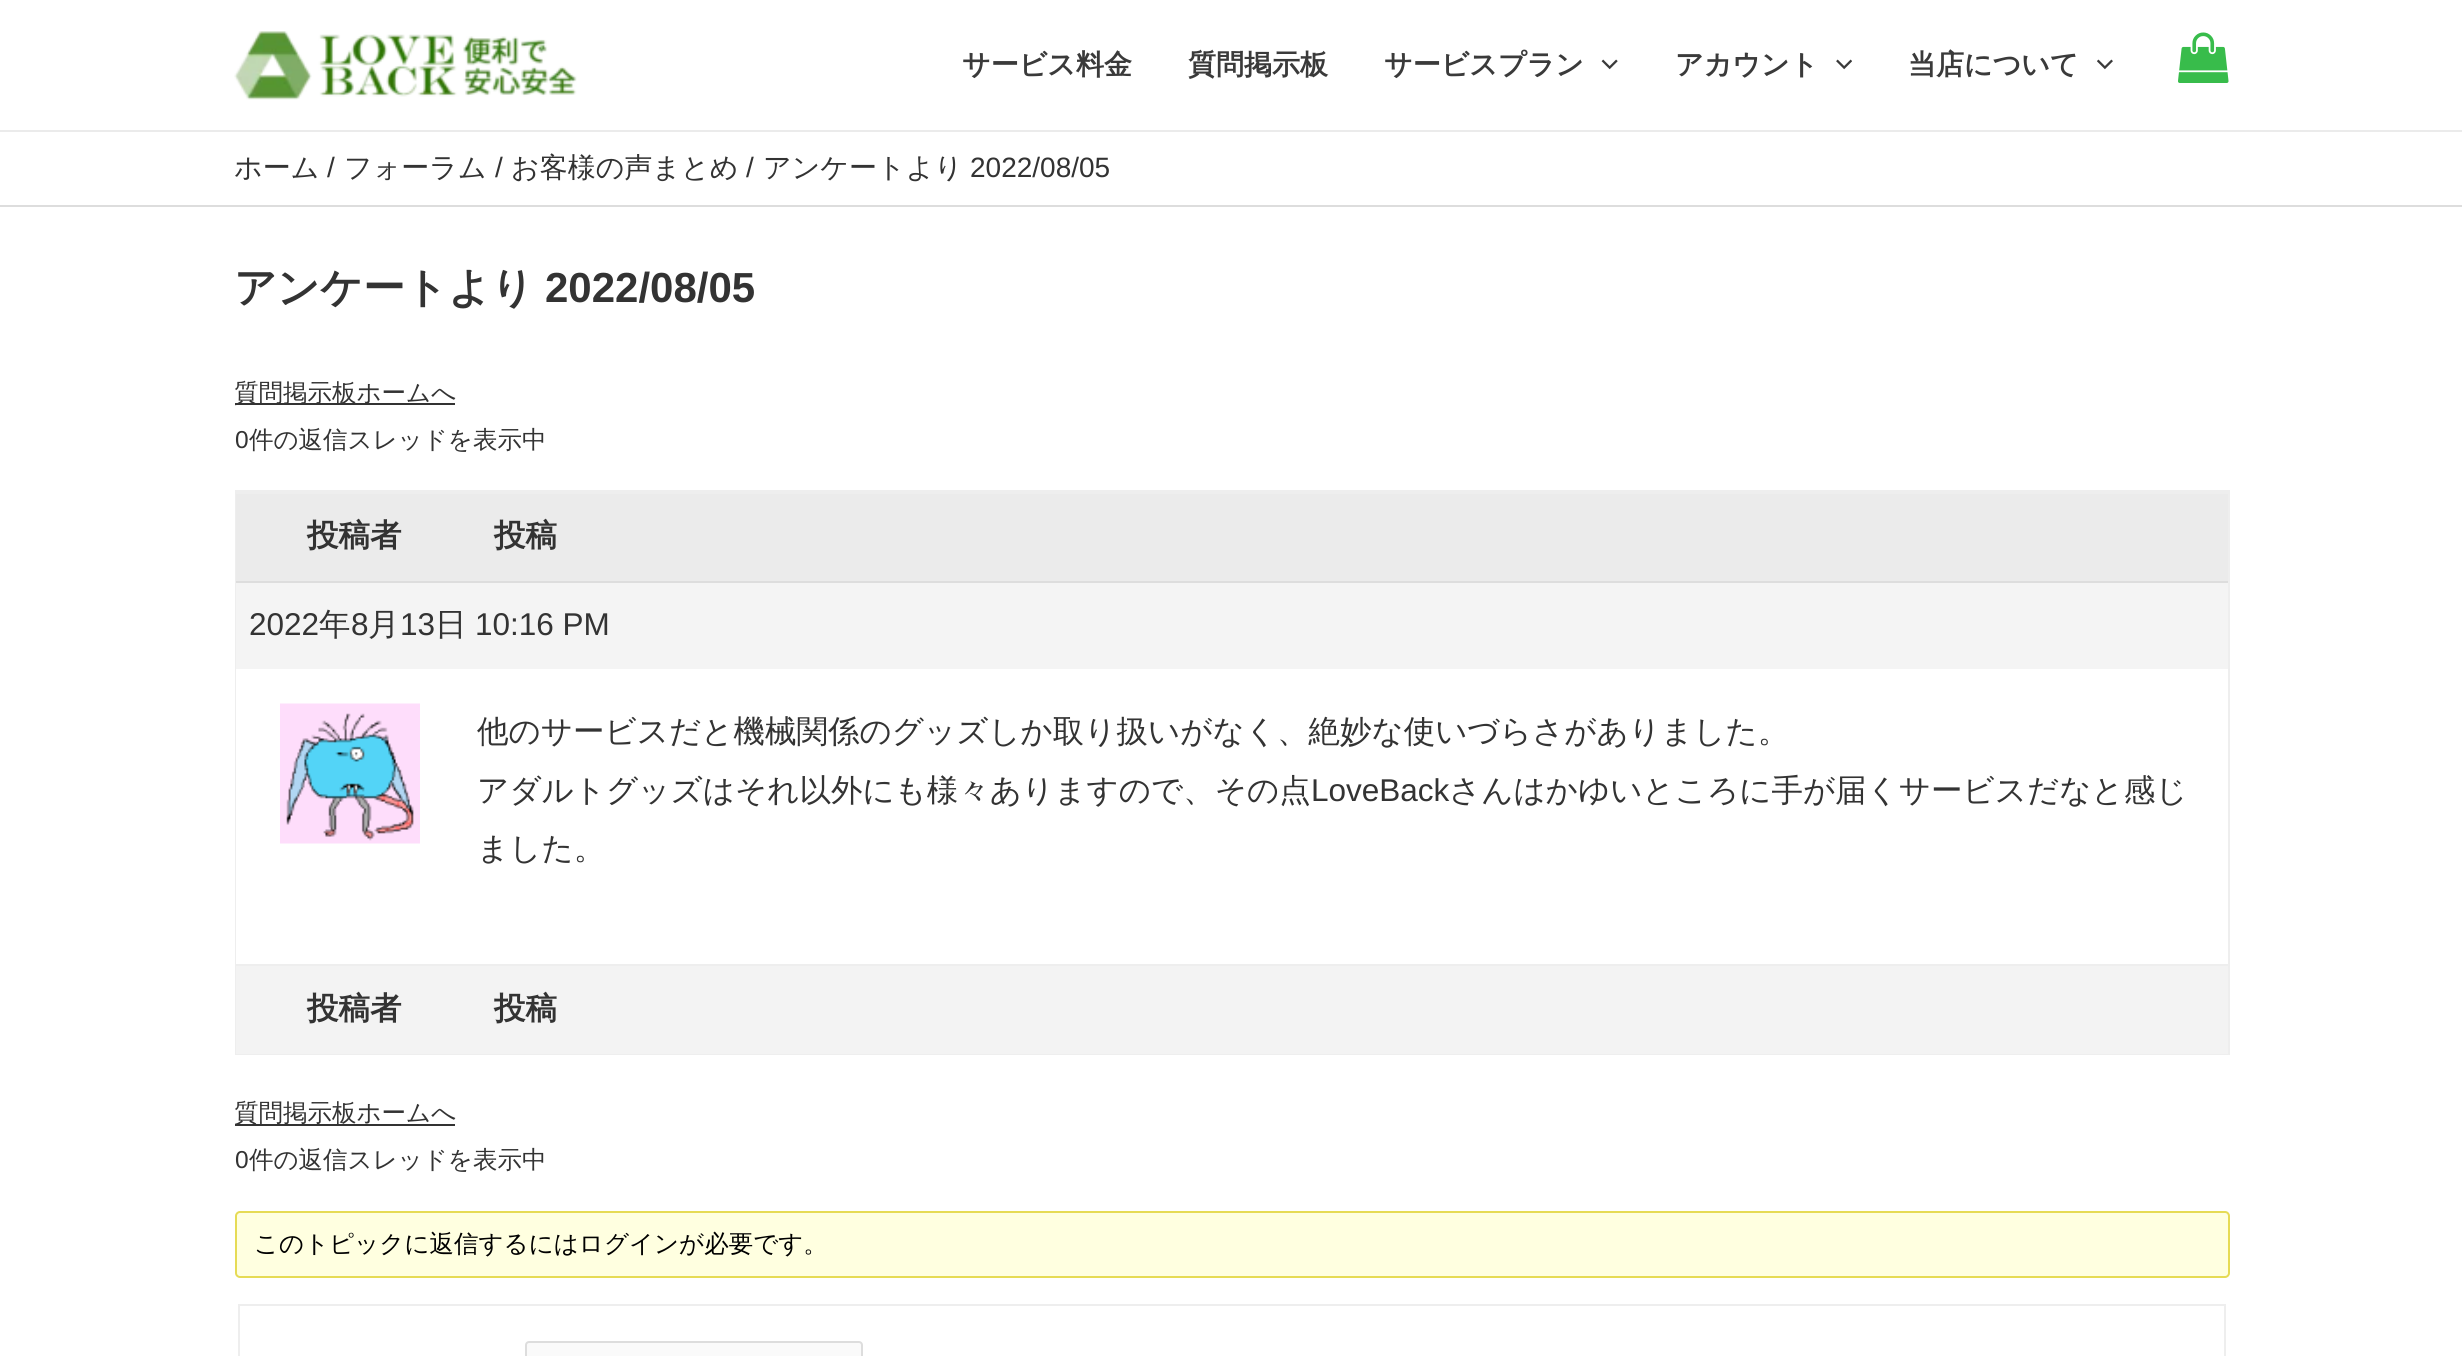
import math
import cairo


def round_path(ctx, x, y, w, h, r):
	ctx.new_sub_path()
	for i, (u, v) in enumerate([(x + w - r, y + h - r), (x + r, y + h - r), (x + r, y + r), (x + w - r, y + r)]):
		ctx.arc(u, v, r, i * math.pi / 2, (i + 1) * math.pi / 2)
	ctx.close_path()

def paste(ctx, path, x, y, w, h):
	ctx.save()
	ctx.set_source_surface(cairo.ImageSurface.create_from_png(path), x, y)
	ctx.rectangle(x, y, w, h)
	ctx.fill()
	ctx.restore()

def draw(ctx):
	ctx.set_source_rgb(1, 1, 1)
	ctx.paint()
	ctx.set_source_rgb(0.918, 0.918, 0.918)
	ctx.rectangle(0, 130, 2462, 2)
	ctx.fill()
	paste(ctx, 'media/1.png', 234, 31, 343, 69)
	ctx.select_font_face('WenQuanYi Zen Hei', cairo.FONT_SLANT_NORMAL, cairo.FONT_WEIGHT_BOLD)
	ctx.set_font_size(28)
	ctx.set_source_rgb(0.227, 0.227, 0.227)
	for x, y, s in [
		(962, 74, 'サービス料金'),
		(1188, 74, '質問掲示板'),
		(1384, 74, 'サービスプラン'),
	]:
		ctx.move_to(x, y)
		ctx.show_text(s)
	paste(ctx, 'media/2.png', 1601, 59, 17, 11)
	ctx.move_to(1675, 74)
	ctx.show_text('アカウント')
	paste(ctx, 'media/3.png', 1836, 59, 16, 11)
	ctx.move_to(1908, 74)
	ctx.show_text('当店について')
	paste(ctx, 'media/4.png', 2097, 59, 16, 11)
	paste(ctx, 'media/5.png', 2178, 32, 51, 51)
	ctx.set_source_rgb(0.867, 0.867, 0.867)
	ctx.rectangle(0, 205, 2462, 2)
	ctx.fill()
	ctx.select_font_face('WenQuanYi Zen Hei Medium')
	ctx.set_source_rgb(0.2, 0.2, 0.2)
	ctx.move_to(234, 177)
	ctx.show_text('ホーム')
	ctx.select_font_face('Liberation Sans')
	ctx.move_to(327, 177)
	ctx.show_text('/')
	ctx.select_font_face('WenQuanYi Zen Hei Medium')
	ctx.move_to(344, 177)
	ctx.show_text('フォーラム')
	ctx.select_font_face('Liberation Sans')
	ctx.move_to(495, 177)
	ctx.show_text('/')
	ctx.select_font_face('WenQuanYi Zen Hei Medium')
	ctx.move_to(511, 177)
	ctx.show_text('お客様の声まとめ')
	ctx.select_font_face('Liberation Sans')
	ctx.move_to(746, 177)
	ctx.show_text('/')
	ctx.select_font_face('WenQuanYi Zen Hei Medium')
	ctx.move_to(763, 177)
	ctx.show_text('アンケートより')
	ctx.select_font_face('Liberation Sans')
	ctx.move_to(970, 177)
	ctx.show_text('2022/08/05')
	ctx.select_font_face('WenQuanYi Zen Hei', cairo.FONT_SLANT_NORMAL, cairo.FONT_WEIGHT_BOLD)
	ctx.set_font_size(42)
	ctx.move_to(234, 302)
	ctx.show_text('アンケートより')
	ctx.select_font_face('Liberation Sans', cairo.FONT_SLANT_NORMAL, cairo.FONT_WEIGHT_BOLD)
	ctx.move_to(545, 302)
	ctx.show_text('2022/08/05')
	ctx.rectangle(235, 403, 220, 2)
	ctx.fill()
	ctx.save()
	ctx.rectangle(235, 369, 1995, 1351)
	ctx.clip()
	ctx.select_font_face('WenQuanYi Zen Hei Medium')
	ctx.set_font_size(24.5)
	ctx.move_to(234, 401)
	ctx.show_text('質問掲示板ホームへ')
	ctx.restore()
	ctx.select_font_face('Liberation Sans')
	ctx.set_font_size(24.5)
	ctx.move_to(235, 448)
	ctx.show_text('0')
	ctx.select_font_face('WenQuanYi Zen Hei Medium')
	ctx.move_to(249, 448)
	ctx.show_text('件の返信スレッドを表示中')
	ctx.rectangle(236, 491, 1993, 563)
	ctx.set_source_rgb(0.933, 0.933, 0.933)
	ctx.stroke()
	ctx.set_source_rgb(0.918, 0.918, 0.918)
	ctx.rectangle(236, 494, 1992, 87)
	ctx.fill()
	ctx.set_source_rgb(0.933, 0.933, 0.933)
	ctx.rectangle(236, 492, 1992, 2)
	ctx.fill()
	ctx.select_font_face('WenQuanYi Zen Hei', cairo.FONT_SLANT_NORMAL, cairo.FONT_WEIGHT_BOLD)
	ctx.set_font_size(31.5)
	ctx.set_source_rgb(0.2, 0.2, 0.2)
	ctx.move_to(307, 546)
	ctx.show_text('投稿者')
	ctx.move_to(494, 546)
	ctx.show_text('投稿')
	ctx.set_source_rgb(0.957, 0.957, 0.957)
	ctx.rectangle(236, 583, 1992, 86)
	ctx.fill()
	ctx.set_source_rgb(0.867, 0.867, 0.867)
	ctx.rectangle(236, 581, 1992, 2)
	ctx.fill()
	ctx.select_font_face('Liberation Sans')
	ctx.set_source_rgb(0.2, 0.2, 0.2)
	ctx.move_to(249, 635)
	ctx.show_text('2022')
	ctx.select_font_face('WenQuanYi Zen Hei Medium')
	ctx.move_to(319, 635)
	ctx.show_text('年')
	ctx.select_font_face('Liberation Sans')
	ctx.move_to(351, 635)
	ctx.show_text('8')
	ctx.select_font_face('WenQuanYi Zen Hei Medium')
	ctx.move_to(368, 635)
	ctx.show_text('月')
	ctx.select_font_face('Liberation Sans')
	ctx.move_to(400, 635)
	ctx.show_text('13')
	ctx.select_font_face('WenQuanYi Zen Hei Medium')
	ctx.move_to(435, 635)
	ctx.show_text('日')
	ctx.select_font_face('Liberation Sans')
	ctx.move_to(475, 635)
	ctx.show_text('10:16 PM')
	ctx.set_source_rgb(1, 1, 1)
	ctx.rectangle(236, 669, 1, 295)
	ctx.fill()
	paste(ctx, 'media/6.png', 280, 703, 140, 141)
	ctx.select_font_face('WenQuanYi Zen Hei Medium')
	ctx.set_source_rgb(0.2, 0.2, 0.2)
	ctx.move_to(477, 742)
	ctx.show_text('他のサービスだと機械関係のグッズしか取り扱いがなく、絶妙な使いづらさがありました。')
	ctx.move_to(477, 801)
	ctx.show_text('アダルトグッズはそれ以外にも様々ありますので、その点')
	ctx.select_font_face('Liberation Sans')
	ctx.move_to(1311, 801)
	ctx.show_text('LoveBack')
	ctx.select_font_face('WenQuanYi Zen Hei Medium')
	ctx.move_to(1449, 801)
	ctx.show_text('さんはかゆいところに手が届くサービスだなと感じ')
	ctx.move_to(477, 859)
	ctx.show_text('ました。')
	ctx.set_source_rgb(0.953, 0.953, 0.953)
	ctx.rectangle(236, 966, 1992, 88)
	ctx.fill()
	ctx.set_source_rgb(0.933, 0.933, 0.933)
	ctx.rectangle(236, 964, 1992, 2)
	ctx.fill()
	ctx.select_font_face('WenQuanYi Zen Hei', cairo.FONT_SLANT_NORMAL, cairo.FONT_WEIGHT_BOLD)
	ctx.set_source_rgb(0.2, 0.2, 0.2)
	ctx.move_to(307, 1019)
	ctx.show_text('投稿者')
	ctx.move_to(494, 1019)
	ctx.show_text('投稿')
	ctx.rectangle(235, 1124, 220, 2)
	ctx.fill()
	ctx.save()
	ctx.rectangle(235, 369, 1995, 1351)
	ctx.clip()
	ctx.select_font_face('WenQuanYi Zen Hei Medium')
	ctx.set_font_size(24.5)
	ctx.move_to(234, 1121)
	ctx.show_text('質問掲示板ホームへ')
	ctx.restore()
	ctx.select_font_face('Liberation Sans')
	ctx.set_font_size(24.5)
	ctx.move_to(235, 1168)
	ctx.show_text('0')
	ctx.select_font_face('WenQuanYi Zen Hei Medium')
	ctx.move_to(249, 1168)
	ctx.show_text('件の返信スレッドを表示中')
	ctx.set_source_rgb(1, 1, 0.878)
	round_path(ctx, 236, 1212, 1993, 65, 4)
	ctx.fill_preserve()
	ctx.set_source_rgb(0.902, 0.859, 0.333)
	ctx.stroke()
	ctx.set_source_rgb(0, 0, 0)
	ctx.move_to(254, 1252)
	ctx.show_text('このトピックに返信するにはログインが必要です。')
	ctx.rectangle(239, 1305, 1986, 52)
	ctx.set_source_rgb(0.933, 0.933, 0.933)
	ctx.stroke()
	ctx.set_source_rgb(0.98, 0.98, 0.98)
	round_path(ctx, 526, 1342, 336, 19, 3)
	ctx.fill_preserve()
	ctx.set_source_rgb(0.867, 0.867, 0.867)
	ctx.stroke()


surface = cairo.ImageSurface(cairo.FORMAT_RGB24, 2462, 1356)
ctx = cairo.Context(surface)
options = cairo.FontOptions()
options.set_hint_metrics(cairo.HINT_METRICS_OFF)
options.set_hint_style(cairo.HINT_STYLE_NONE)
ctx.set_font_options(options)
ctx.set_miter_limit(4)
draw(ctx)
surface.write_to_png('image.png')
